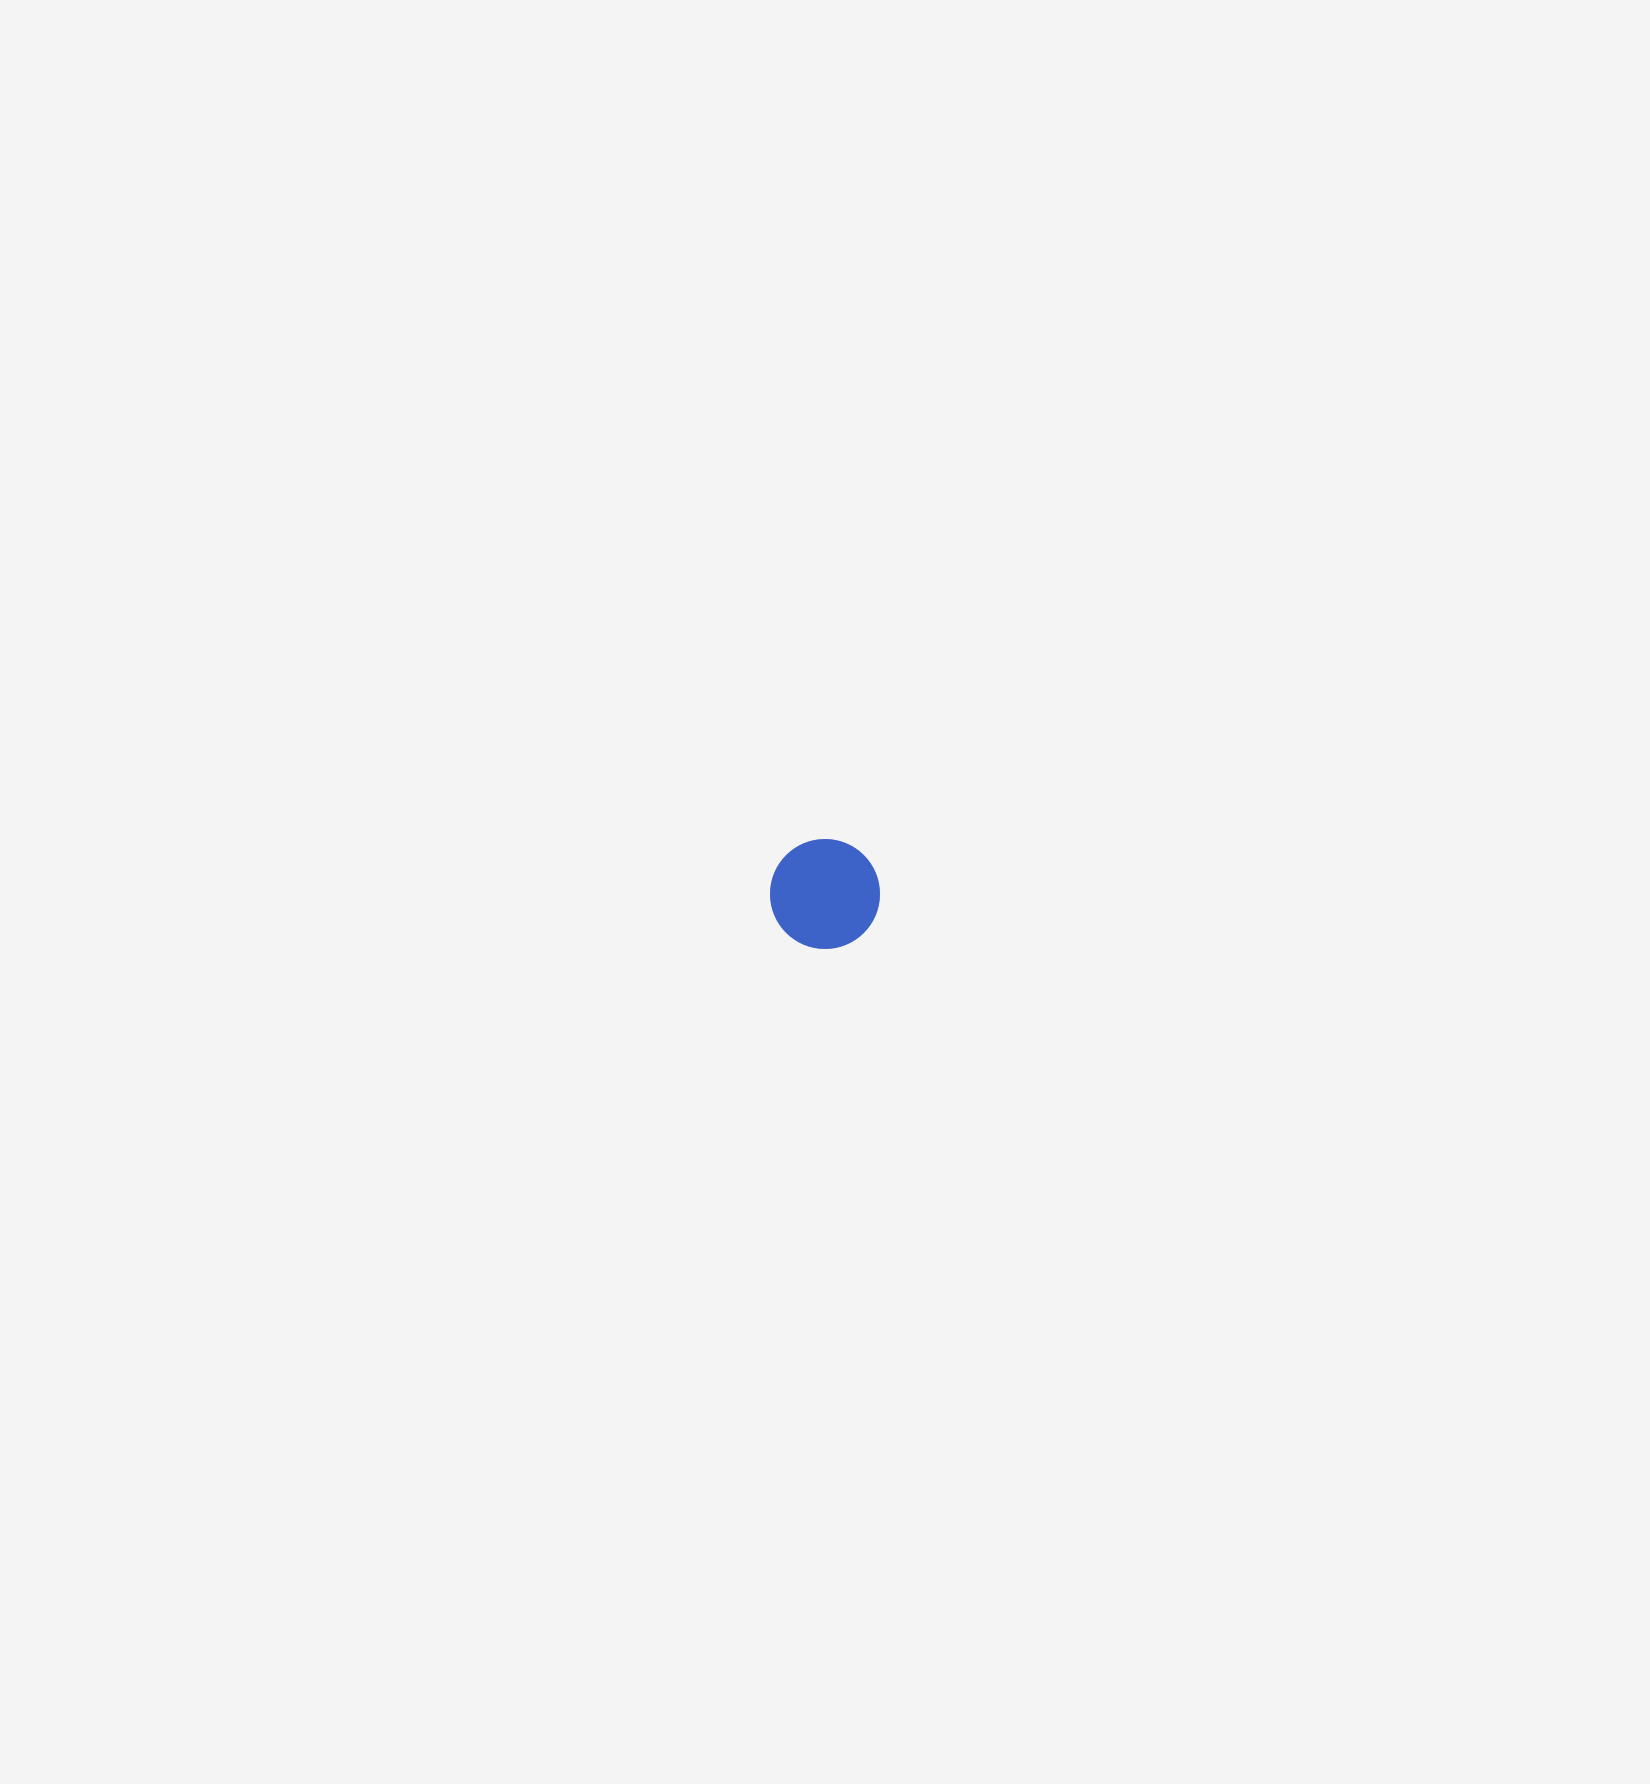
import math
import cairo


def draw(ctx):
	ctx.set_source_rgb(0.957, 0.957, 0.957)
	ctx.paint()
	ctx.set_source_rgb(0.447, 0.553, 0.831)
	ctx.arc(825, 894, 55, 0, 2 * math.pi)
	ctx.fill()
	ctx.set_source_rgba(0.11, 0.282, 0.749, 0.6)
	ctx.arc(825, 894, 55, 0, 2 * math.pi)
	ctx.fill()


surface = cairo.ImageSurface(cairo.FORMAT_RGB24, 1650, 1784)
ctx = cairo.Context(surface)
options = cairo.FontOptions()
options.set_hint_metrics(cairo.HINT_METRICS_OFF)
options.set_hint_style(cairo.HINT_STYLE_NONE)
ctx.set_font_options(options)
ctx.set_miter_limit(4)
draw(ctx)
surface.write_to_png('image.png')
